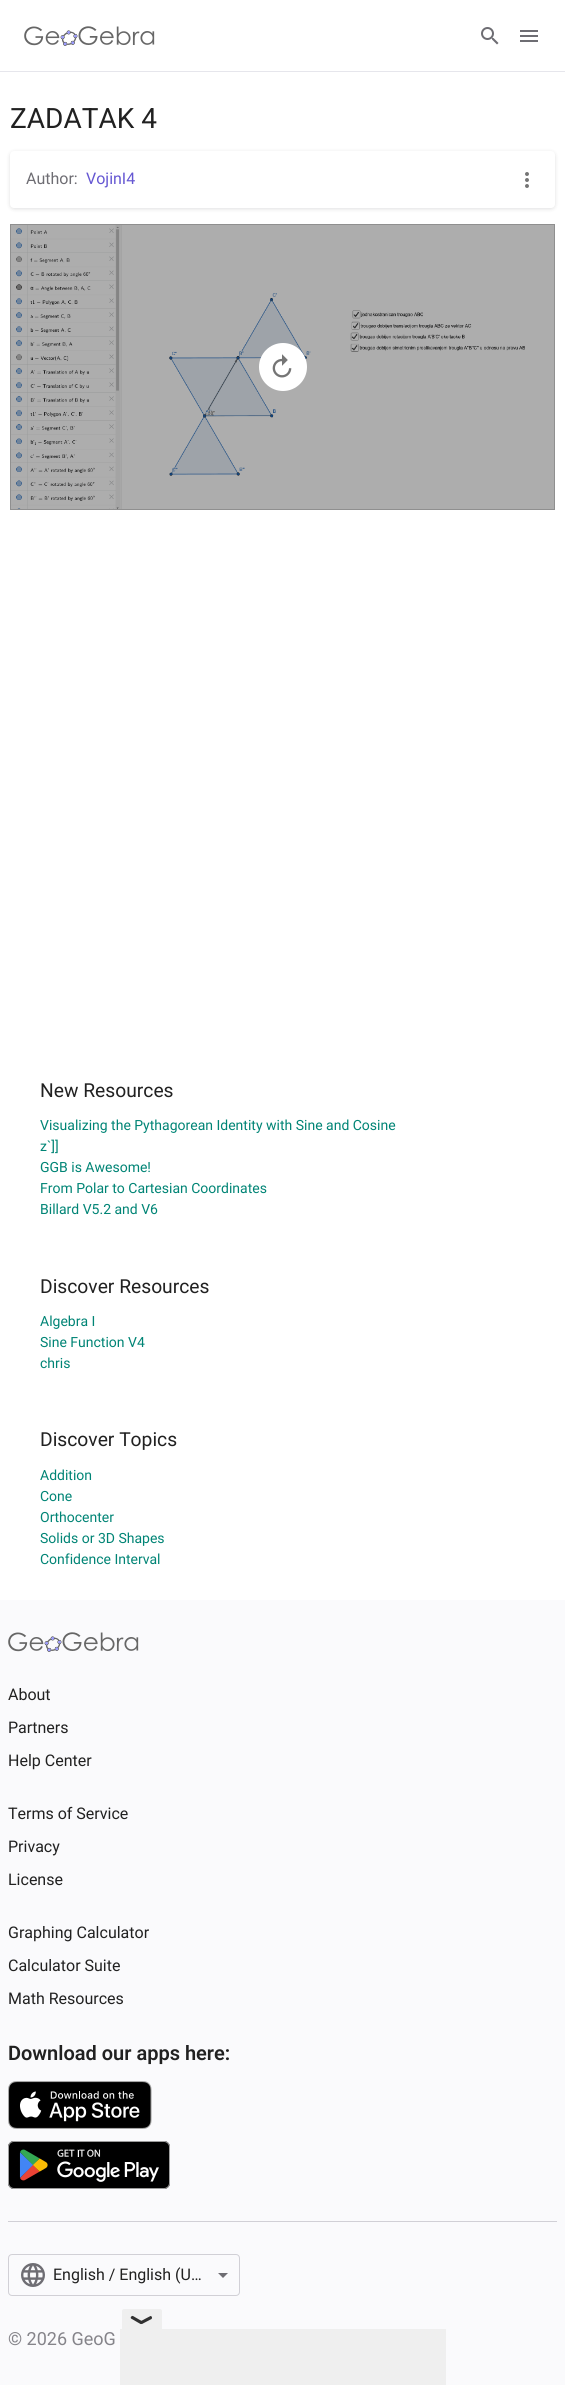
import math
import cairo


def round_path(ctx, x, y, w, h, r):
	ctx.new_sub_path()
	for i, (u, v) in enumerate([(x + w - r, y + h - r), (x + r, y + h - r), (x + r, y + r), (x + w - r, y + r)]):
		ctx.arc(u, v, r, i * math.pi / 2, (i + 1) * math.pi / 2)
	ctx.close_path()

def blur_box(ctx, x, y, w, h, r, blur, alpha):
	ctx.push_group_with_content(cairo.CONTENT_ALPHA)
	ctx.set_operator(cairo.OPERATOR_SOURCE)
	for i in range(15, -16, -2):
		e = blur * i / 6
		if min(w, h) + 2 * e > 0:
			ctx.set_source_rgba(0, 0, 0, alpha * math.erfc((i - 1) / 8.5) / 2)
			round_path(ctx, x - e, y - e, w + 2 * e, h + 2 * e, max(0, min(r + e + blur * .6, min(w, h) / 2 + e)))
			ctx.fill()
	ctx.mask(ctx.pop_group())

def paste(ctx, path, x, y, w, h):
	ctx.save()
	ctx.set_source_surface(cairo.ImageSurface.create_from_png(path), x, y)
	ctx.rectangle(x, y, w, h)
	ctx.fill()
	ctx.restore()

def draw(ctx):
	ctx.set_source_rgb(1, 1, 1)
	ctx.paint()
	ctx.set_source_rgb(0.678, 0.678, 0.678)
	ctx.rectangle(525, 225, 29, 284)
	ctx.fill()
	ctx.set_source_rgb(0.902, 0.902, 0.922)
	ctx.rectangle(0, 71, 565, 1)
	ctx.fill()
	paste(ctx, 'media/1.png', 24, 26, 131, 20)
	paste(ctx, 'media/2.png', 481, 27, 18, 18)
	paste(ctx, 'media/3.png', 520, 30, 18, 12)
	ctx.select_font_face('Roboto')
	ctx.set_font_size(28)
	ctx.set_source_rgb(0.129, 0.129, 0.129)
	ctx.move_to(10, 128)
	ctx.show_text('ZADATAK 4')
	ctx.set_source_rgb(0.11, 0.11, 0.122)
	blur_box(ctx, 10, 152, 545, 57, 4, 2, 0.14)
	ctx.set_source_rgb(1, 1, 1)
	round_path(ctx, 10, 151, 545, 57, 4)
	ctx.fill()
	ctx.set_font_size(16)
	ctx.set_source_rgb(0.431, 0.427, 0.451)
	ctx.move_to(26, 184)
	ctx.show_text('Author:')
	ctx.set_source_rgb(0.396, 0.341, 0.824)
	ctx.move_to(86, 184)
	ctx.show_text('VojinI4')
	paste(ctx, 'media/4.png', 525, 172, 4, 16)
	paste(ctx, 'media/5.png', 11, 225, 514, 284)
	ctx.rectangle(10.5, 224.5, 544, 285)
	ctx.set_source_rgb(0.561, 0.561, 0.561)
	ctx.set_line_width(1)
	ctx.stroke()
	ctx.set_source_rgb(1, 1, 1)
	ctx.arc(283, 367, 24, 0, 2 * math.pi)
	ctx.fill()
	paste(ctx, 'media/6.png', 272, 354, 20, 24)
	ctx.set_font_size(19.25)
	ctx.set_source_rgb(0.129, 0.129, 0.129)
	ctx.move_to(40, 1097)
	ctx.show_text('New Resources')
	ctx.set_font_size(14)
	ctx.set_source_rgb(0, 0.518, 0.459)
	for x, y, s in [
		(40, 1130, 'Visualizing the Pythagorean Identity with Sine and Cosine'),
		(40, 1151, 'z`]]'),
		(40, 1172, 'GGB is Awesome!'),
		(40, 1193, 'From Polar to Cartesian Coordinates'),
		(40, 1214, 'Billard V5.2 and V6'),
	]:
		ctx.move_to(x, y)
		ctx.show_text(s)
	ctx.set_font_size(19.25)
	ctx.set_source_rgb(0.129, 0.129, 0.129)
	ctx.move_to(40, 1293)
	ctx.show_text('Discover Resources')
	ctx.set_font_size(14)
	ctx.set_source_rgb(0, 0.518, 0.459)
	for x, y, s in [
		(40, 1326, 'Algebra I'),
		(40, 1347, 'Sine Function V4'),
		(40, 1368, 'chris'),
	]:
		ctx.move_to(x, y)
		ctx.show_text(s)
	ctx.set_font_size(19.25)
	ctx.set_source_rgb(0.129, 0.129, 0.129)
	ctx.move_to(40, 1446)
	ctx.show_text('Discover Topics')
	ctx.set_font_size(14)
	ctx.set_source_rgb(0, 0.518, 0.459)
	for x, y, s in [
		(40, 1480, 'Addition'),
		(40, 1501, 'Cone'),
		(40, 1522, 'Orthocenter'),
		(40, 1543, 'Solids or 3D Shapes'),
		(40, 1564, 'Confidence Interval'),
	]:
		ctx.move_to(x, y)
		ctx.show_text(s)
	ctx.set_source_rgb(0.98, 0.98, 0.988)
	ctx.rectangle(0, 1600, 565, 785)
	ctx.fill()
	paste(ctx, 'media/7.png', 8, 1632, 131, 20)
	ctx.set_font_size(16)
	ctx.set_source_rgb(0.129, 0.129, 0.129)
	for x, y, s in [
		(8, 1700, 'About'),
		(8, 1733, 'Partners'),
		(8, 1766, 'Help Center'),
		(8, 1819, 'Terms of Service'),
		(8, 1852, 'Privacy'),
		(8, 1885, 'License'),
		(8, 1938, 'Graphing Calculator'),
		(8, 1971, 'Calculator Suite'),
		(8, 2004, 'Math Resources'),
	]:
		ctx.move_to(x, y)
		ctx.show_text(s)
	ctx.select_font_face('Roboto SemiBold')
	ctx.set_font_size(20)
	ctx.move_to(8, 2060)
	ctx.show_text('Download our apps here:')
	paste(ctx, 'media/8.png', 8, 2081, 144, 48)
	paste(ctx, 'media/9.png', 8, 2141, 162, 48)
	ctx.set_source_rgb(0.82, 0.816, 0.839)
	ctx.rectangle(8, 2221, 549, 1)
	ctx.fill()
	round_path(ctx, 8.5, 2254.5, 231, 41, 3.5)
	ctx.stroke()
	paste(ctx, 'media/10.png', 21, 2263, 24, 24)
	ctx.select_font_face('Roboto')
	ctx.set_font_size(16)
	ctx.set_source_rgb(0.129, 0.129, 0.129)
	ctx.move_to(53, 2280)
	ctx.show_text('English / English (U…')
	ctx.set_source_rgb(0.431, 0.427, 0.451)
	ctx.new_path()
	ctx.move_to(218, 2273)
	ctx.line_to(223, 2278)
	ctx.line_to(228, 2273)
	ctx.close_path()
	ctx.fill()
	ctx.set_font_size(18)
	ctx.set_source_rgb(0.522, 0.518, 0.541)
	ctx.move_to(8, 2345)
	ctx.show_text('© 2026 GeoG')
	ctx.set_source_rgb(0.937, 0.937, 0.937)
	ctx.new_path()
	ctx.move_to(124, 2309)
	ctx.line_to(160, 2309)
	ctx.curve_to(161, 2309, 162, 2310, 162, 2311)
	ctx.line_to(162, 2329)
	ctx.line_to(122, 2329)
	ctx.line_to(122, 2311)
	ctx.curve_to(122, 2310, 123, 2309, 124, 2309)
	ctx.close_path()
	ctx.fill()
	ctx.set_source_rgb(0.192, 0.192, 0.192)
	ctx.new_path()
	ctx.move_to(133, 2316)
	ctx.line_to(142.5, 2321.5)
	ctx.curve_to(143, 2323, 141.5, 2324.5, 140.5, 2324)
	ctx.line_to(131, 2318.5)
	ctx.curve_to(130, 2317, 132, 2315.5, 133, 2316)
	ctx.close_path()
	ctx.fill()
	ctx.new_path()
	ctx.move_to(141, 2321)
	ctx.line_to(150.5, 2316)
	ctx.curve_to(152, 2316, 152.5, 2318, 151.5, 2319)
	ctx.line_to(142, 2324)
	ctx.curve_to(140.5, 2324, 140, 2322, 141, 2321)
	ctx.close_path()
	ctx.fill()
	ctx.set_source_rgb(0.937, 0.937, 0.937)
	ctx.rectangle(120, 2329, 326, 56)
	ctx.fill()


surface = cairo.ImageSurface(cairo.FORMAT_RGB24, 565, 2385)
ctx = cairo.Context(surface)
options = cairo.FontOptions()
options.set_hint_metrics(cairo.HINT_METRICS_OFF)
options.set_hint_style(cairo.HINT_STYLE_NONE)
ctx.set_font_options(options)
ctx.set_miter_limit(4)
draw(ctx)
surface.write_to_png('image.png')
